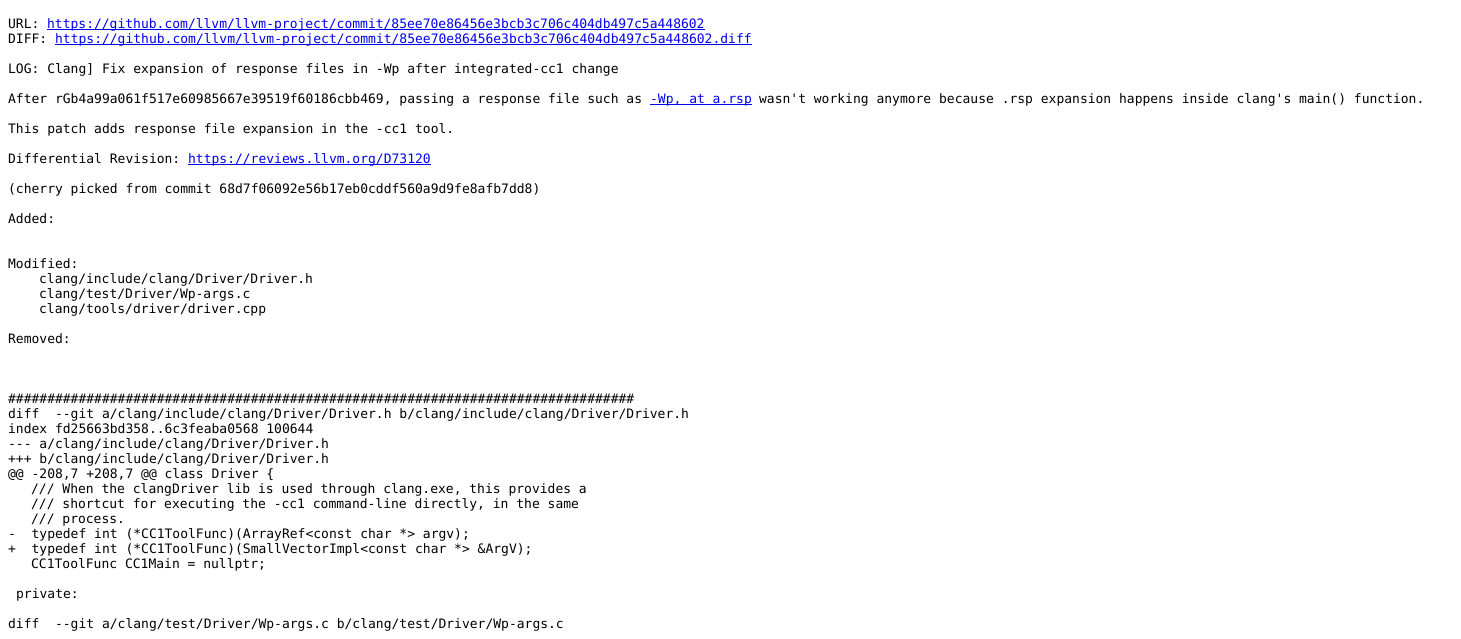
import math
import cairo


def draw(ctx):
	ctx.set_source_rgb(1, 1, 1)
	ctx.paint()
	ctx.select_font_face('DejaVu Sans Mono')
	ctx.set_font_size(13)
	ctx.set_source_rgb(0, 0, 0)
	ctx.move_to(8, 28)
	ctx.show_text('URL:')
	ctx.set_source_rgb(0, 0, 0.933)
	ctx.rectangle(47, 29, 658, 1)
	ctx.fill()
	ctx.move_to(47, 28)
	ctx.show_text('https://github.com/llvm/llvm-project/commit/85ee70e86456e3bcb3c706c404db497c5a448602')
	ctx.set_source_rgb(0, 0, 0)
	ctx.move_to(8, 43)
	ctx.show_text('DIFF:')
	ctx.set_source_rgb(0, 0, 0.933)
	ctx.rectangle(55, 44, 697, 1)
	ctx.fill()
	ctx.move_to(55, 43)
	ctx.show_text('https://github.com/llvm/llvm-project/commit/85ee70e86456e3bcb3c706c404db497c5a448602.diff')
	ctx.set_source_rgb(0, 0, 0)
	ctx.move_to(8, 73)
	ctx.show_text('LOG: Clang] Fix expansion of response files in -Wp after integrated-cc1 change')
	ctx.move_to(8, 103)
	ctx.show_text('After rGb4a99a061f517e60985667e39519f60186cbb469, passing a response file such as')
	ctx.set_source_rgb(0, 0, 0.933)
	ctx.rectangle(650, 104, 102, 1)
	ctx.fill()
	ctx.move_to(650, 103)
	ctx.show_text('-Wp, at a.rsp')
	ctx.set_source_rgb(0, 0, 0)
	for x, y, s in [
		(759, 103, 'wasn\'t working anymore because .rsp expansion happens inside clang\'s main() function.'),
		(8, 133, 'This patch adds response file expansion in the -cc1 tool.'),
		(8, 163, 'Differential Revision:'),
	]:
		ctx.move_to(x, y)
		ctx.show_text(s)
	ctx.set_source_rgb(0, 0, 0.933)
	ctx.rectangle(188, 164, 243, 1)
	ctx.fill()
	ctx.move_to(188, 163)
	ctx.show_text('https://reviews.llvm.org/D73120')
	ctx.set_source_rgb(0, 0, 0)
	for x, y, s in [
		(8, 193, '(cherry picked from commit 68d7f06092e56b17eb0cddf560a9d9fe8afb7dd8)'),
		(8, 223, 'Added:'),
		(8, 268, 'Modified:'),
		(39, 283, 'clang/include/clang/Driver/Driver.h'),
		(39, 298, 'clang/test/Driver/Wp-args.c'),
		(39, 313, 'clang/tools/driver/driver.cpp'),
		(8, 343, 'Removed:'),
		(8, 403, '################################################################################'),
		(8, 418, 'diff  --git a/clang/include/clang/Driver/Driver.h b/clang/include/clang/Driver/Driver.h'),
		(8, 433, 'index fd25663bd358..6c3feaba0568 100644'),
		(8, 448, '--- a/clang/include/clang/Driver/Driver.h'),
		(8, 463, '+++ b/clang/include/clang/Driver/Driver.h'),
		(8, 478, '@@ -208,7 +208,7 @@ class Driver {'),
		(31, 493, '/// When the clangDriver lib is used through clang.exe, this provides a'),
		(31, 508, '/// shortcut for executing the -cc1 command-line directly, in the same'),
		(31, 523, '/// process.'),
		(8, 538, '-  typedef int (*CC1ToolFunc)(ArrayRef<const char *> argv);'),
		(8, 553, '+  typedef int (*CC1ToolFunc)(SmallVectorImpl<const char *> &ArgV);'),
		(31, 568, 'CC1ToolFunc CC1Main = nullptr;'),
		(16, 598, 'private:'),
		(8, 628, 'diff  --git a/clang/test/Driver/Wp-args.c b/clang/test/Driver/Wp-args.c'),
	]:
		ctx.move_to(x, y)
		ctx.show_text(s)


surface = cairo.ImageSurface(cairo.FORMAT_RGB24, 1461, 639)
ctx = cairo.Context(surface)
options = cairo.FontOptions()
options.set_hint_metrics(cairo.HINT_METRICS_OFF)
options.set_hint_style(cairo.HINT_STYLE_NONE)
ctx.set_font_options(options)
ctx.set_miter_limit(4)
draw(ctx)
surface.write_to_png('image.png')
